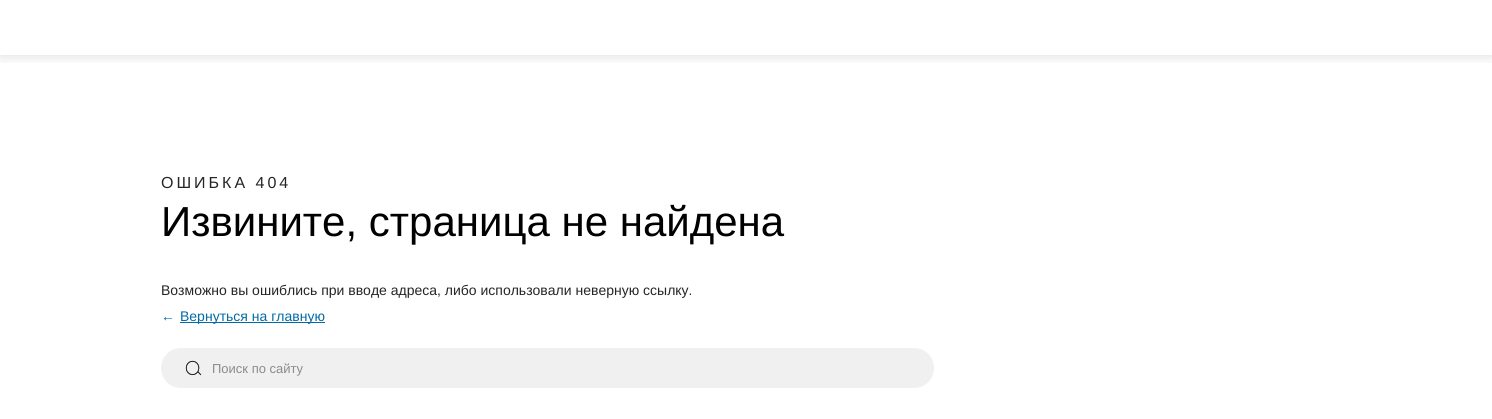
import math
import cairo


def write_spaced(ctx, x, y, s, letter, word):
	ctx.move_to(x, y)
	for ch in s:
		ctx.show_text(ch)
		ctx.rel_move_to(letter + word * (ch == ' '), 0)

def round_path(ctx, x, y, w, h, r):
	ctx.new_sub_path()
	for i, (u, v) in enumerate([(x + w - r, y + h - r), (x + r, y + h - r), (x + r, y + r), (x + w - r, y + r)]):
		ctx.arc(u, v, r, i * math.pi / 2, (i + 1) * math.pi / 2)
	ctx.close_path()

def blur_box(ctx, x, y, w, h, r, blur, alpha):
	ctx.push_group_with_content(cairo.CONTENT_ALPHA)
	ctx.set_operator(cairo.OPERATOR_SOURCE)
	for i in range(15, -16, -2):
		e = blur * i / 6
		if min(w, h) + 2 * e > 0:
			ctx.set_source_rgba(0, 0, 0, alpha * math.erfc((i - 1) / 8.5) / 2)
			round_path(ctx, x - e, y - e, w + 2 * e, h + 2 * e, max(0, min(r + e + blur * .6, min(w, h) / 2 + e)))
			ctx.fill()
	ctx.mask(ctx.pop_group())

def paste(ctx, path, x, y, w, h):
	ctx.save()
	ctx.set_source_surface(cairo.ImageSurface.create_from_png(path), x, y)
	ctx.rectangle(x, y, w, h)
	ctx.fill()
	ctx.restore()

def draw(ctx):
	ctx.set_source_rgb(1, 1, 1)
	ctx.paint()
	ctx.save()
	ctx.rectangle(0, 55, 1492, 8)
	ctx.clip()
	ctx.set_source_rgb(0, 0, 0)
	blur_box(ctx, 0, 0, 1492, 55, 0, 7.5, 0.15)
	ctx.restore()
	ctx.select_font_face('Liberation Sans')
	ctx.set_font_size(16)
	ctx.set_source_rgb(0.145, 0.145, 0.145)
	write_spaced(ctx, 161, 188, 'ОШИБКА 404', 3, 0)
	ctx.set_font_size(42)
	ctx.set_source_rgb(0, 0, 0)
	ctx.move_to(161, 236)
	ctx.show_text('Извините, страница не найдена')
	ctx.set_font_size(14)
	ctx.set_source_rgb(0.145, 0.145, 0.145)
	ctx.move_to(161, 295)
	ctx.show_text('Возможно вы ошиблись при вводе адреса, либо использовали неверную ссылку.')
	ctx.set_source_rgb(0.012, 0.416, 0.643)
	ctx.move_to(161, 321)
	ctx.show_text('←')
	ctx.rectangle(180, 322, 145, 1)
	ctx.fill()
	ctx.move_to(180, 321)
	ctx.show_text('Вернуться на главную')
	ctx.set_source_rgb(0.941, 0.941, 0.941)
	round_path(ctx, 161.5, 348.5, 772, 39, 19.5)
	ctx.fill_preserve()
	ctx.set_line_width(1)
	ctx.stroke()
	paste(ctx, 'media/1.png', 185, 360, 17, 16)
	ctx.set_font_size(13)
	ctx.set_source_rgb(0.545, 0.545, 0.545)
	ctx.move_to(212, 373)
	ctx.show_text('Поиск по сайту')


surface = cairo.ImageSurface(cairo.FORMAT_RGB24, 1492, 419)
ctx = cairo.Context(surface)
options = cairo.FontOptions()
options.set_hint_metrics(cairo.HINT_METRICS_OFF)
options.set_hint_style(cairo.HINT_STYLE_NONE)
ctx.set_font_options(options)
ctx.set_miter_limit(4)
draw(ctx)
surface.write_to_png('image.png')
